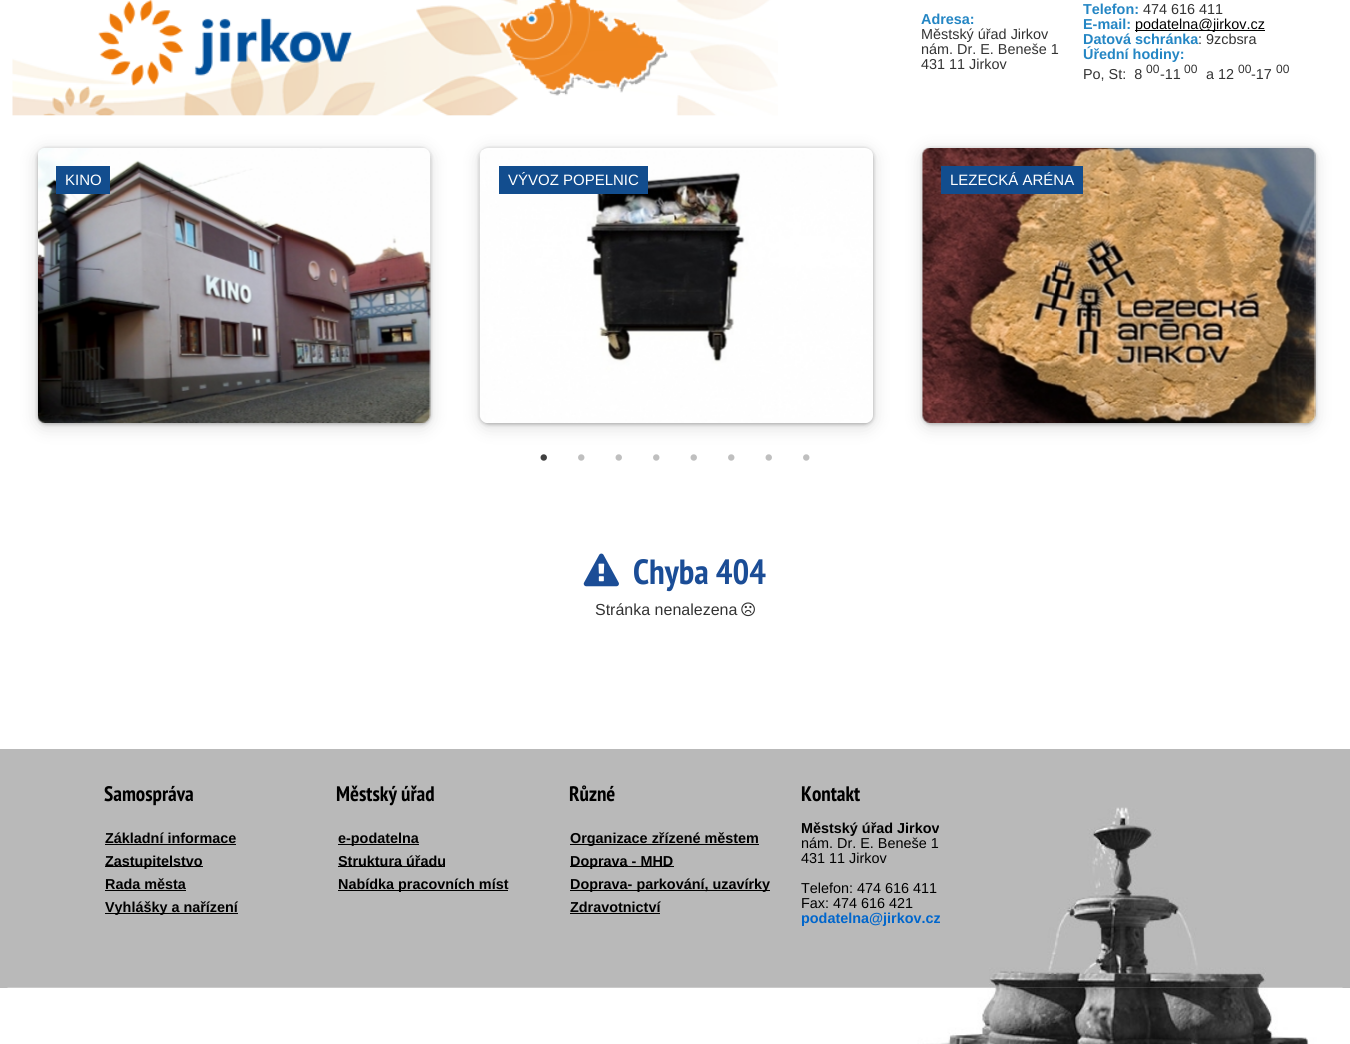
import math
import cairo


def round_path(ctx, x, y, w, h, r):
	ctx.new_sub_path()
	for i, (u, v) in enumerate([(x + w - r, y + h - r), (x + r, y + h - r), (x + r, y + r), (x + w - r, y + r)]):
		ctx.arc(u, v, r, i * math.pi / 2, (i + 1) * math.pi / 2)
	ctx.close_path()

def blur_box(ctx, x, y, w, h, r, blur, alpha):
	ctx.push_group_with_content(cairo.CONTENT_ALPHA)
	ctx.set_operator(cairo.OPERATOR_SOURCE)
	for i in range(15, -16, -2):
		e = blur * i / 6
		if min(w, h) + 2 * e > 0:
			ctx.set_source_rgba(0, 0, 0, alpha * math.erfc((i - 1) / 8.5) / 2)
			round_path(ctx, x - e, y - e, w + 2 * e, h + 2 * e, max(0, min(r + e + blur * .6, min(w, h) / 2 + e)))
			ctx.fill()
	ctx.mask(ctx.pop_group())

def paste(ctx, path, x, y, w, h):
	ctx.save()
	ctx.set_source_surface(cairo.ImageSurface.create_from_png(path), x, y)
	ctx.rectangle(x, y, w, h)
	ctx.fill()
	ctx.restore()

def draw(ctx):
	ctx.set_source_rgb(1, 1, 1)
	ctx.paint()
	paste(ctx, 'media/1.png', 12, 0, 766, 116)
	paste(ctx, 'media/2.png', 98, 0, 254, 86)
	ctx.select_font_face('Liberation Sans', cairo.FONT_SLANT_NORMAL, cairo.FONT_WEIGHT_BOLD)
	ctx.set_font_size(14.4)
	ctx.set_source_rgb(0.141, 0.525, 0.769)
	ctx.move_to(921, 24)
	ctx.show_text('Adresa:')
	ctx.select_font_face('Liberation Sans')
	ctx.set_source_rgb(0.2, 0.2, 0.2)
	for x, y, s in [
		(921, 39, 'Městský úřad Jirkov'),
		(921, 54, 'nám. Dr. E. Beneše 1'),
		(921, 69, '431 11 Jirkov'),
	]:
		ctx.move_to(x, y)
		ctx.show_text(s)
	ctx.select_font_face('Liberation Sans', cairo.FONT_SLANT_NORMAL, cairo.FONT_WEIGHT_BOLD)
	ctx.set_source_rgb(0.141, 0.525, 0.769)
	ctx.move_to(1083, 14)
	ctx.show_text('Telefon:')
	ctx.select_font_face('Liberation Sans')
	ctx.set_source_rgb(0.2, 0.2, 0.2)
	ctx.move_to(1143, 14)
	ctx.show_text('474 616 411')
	ctx.select_font_face('Liberation Sans', cairo.FONT_SLANT_NORMAL, cairo.FONT_WEIGHT_BOLD)
	ctx.set_source_rgb(0.141, 0.525, 0.769)
	ctx.move_to(1083, 29)
	ctx.show_text('E-mail:')
	ctx.set_source_rgb(0, 0, 0)
	ctx.rectangle(1135, 30, 130, 1)
	ctx.fill()
	ctx.select_font_face('Liberation Sans')
	ctx.move_to(1135, 29)
	ctx.show_text('podatelna@jirkov.cz')
	ctx.select_font_face('Liberation Sans', cairo.FONT_SLANT_NORMAL, cairo.FONT_WEIGHT_BOLD)
	ctx.set_source_rgb(0.141, 0.525, 0.769)
	ctx.move_to(1083, 44)
	ctx.show_text('Datová schránka')
	ctx.select_font_face('Liberation Sans')
	ctx.set_source_rgb(0.2, 0.2, 0.2)
	ctx.move_to(1198, 44)
	ctx.show_text(': 9zcbsra')
	ctx.select_font_face('Liberation Sans', cairo.FONT_SLANT_NORMAL, cairo.FONT_WEIGHT_BOLD)
	ctx.set_source_rgb(0.141, 0.525, 0.769)
	ctx.move_to(1083, 59)
	ctx.show_text('Úřední hodiny:')
	ctx.select_font_face('Liberation Sans')
	ctx.set_source_rgb(0.2, 0.2, 0.2)
	ctx.move_to(1083, 79)
	ctx.show_text('Po, St:  8')
	ctx.set_font_size(12)
	ctx.move_to(1146, 73)
	ctx.show_text('00')
	ctx.set_font_size(14.4)
	ctx.move_to(1160, 79)
	ctx.show_text('-11')
	ctx.set_font_size(12)
	ctx.move_to(1184, 73)
	ctx.show_text('00')
	ctx.set_font_size(14.4)
	ctx.move_to(1206, 79)
	ctx.show_text('a 12')
	ctx.set_font_size(12)
	ctx.move_to(1238, 73)
	ctx.show_text('00')
	ctx.set_font_size(14.4)
	ctx.move_to(1251, 79)
	ctx.show_text('-17')
	ctx.set_font_size(12)
	ctx.move_to(1276, 73)
	ctx.show_text('00')
	ctx.set_source_rgb(0, 0, 0)
	blur_box(ctx, 36, 150, 395, 278, 9, 9, 0.12)
	blur_box(ctx, 38, 149, 392, 275, 8, 2, 0.3)
	ctx.set_source_rgb(1, 1, 1)
	round_path(ctx, 38, 148, 392, 275, 8)
	ctx.fill()
	paste(ctx, 'media/3.png', 38, 148, 393, 275)
	ctx.set_source_rgb(0.071, 0.302, 0.557)
	ctx.rectangle(56, 166, 54, 28)
	ctx.fill()
	ctx.set_font_size(15)
	ctx.set_source_rgb(1, 1, 1)
	ctx.move_to(65, 185)
	ctx.show_text('KINO')
	ctx.set_source_rgb(0, 0, 0)
	blur_box(ctx, 479, 150, 395, 278, 9, 9, 0.12)
	blur_box(ctx, 480, 149, 393, 275, 8, 2, 0.3)
	ctx.set_source_rgb(1, 1, 1)
	round_path(ctx, 480, 148, 393, 275, 8)
	ctx.fill()
	paste(ctx, 'media/4.png', 479, 150, 394, 273)
	ctx.set_source_rgb(0.071, 0.302, 0.557)
	ctx.rectangle(499, 166, 149, 28)
	ctx.fill()
	ctx.set_source_rgb(1, 1, 1)
	ctx.move_to(508, 185)
	ctx.show_text('VÝVOZ POPELNIC')
	ctx.set_source_rgb(0, 0, 0)
	blur_box(ctx, 921, 150, 395, 278, 9, 9, 0.12)
	blur_box(ctx, 923, 149, 392, 275, 8, 2, 0.3)
	ctx.set_source_rgb(1, 1, 1)
	round_path(ctx, 923, 148, 392, 275, 8)
	ctx.fill()
	paste(ctx, 'media/5.png', 922, 148, 394, 275)
	ctx.set_source_rgb(0.071, 0.302, 0.557)
	ctx.rectangle(941, 166, 142, 28)
	ctx.fill()
	ctx.set_source_rgb(1, 1, 1)
	ctx.move_to(950, 185)
	ctx.show_text('LEZECKÁ ARÉNA')
	paste(ctx, 'media/6.png', 540, 454, 7, 7)
	paste(ctx, 'media/7.png', 578, 454, 7, 7)
	paste(ctx, 'media/8.png', 615, 454, 7, 7)
	paste(ctx, 'media/7.png', 653, 454, 7, 7)
	paste(ctx, 'media/8.png', 690, 454, 7, 7)
	paste(ctx, 'media/7.png', 728, 454, 7, 7)
	paste(ctx, 'media/8.png', 765, 454, 7, 7)
	paste(ctx, 'media/7.png', 803, 454, 7, 7)
	paste(ctx, 'media/9.png', 583, 553, 36, 34)
	ctx.select_font_face('PT Sans Narrow', cairo.FONT_SLANT_NORMAL, cairo.FONT_WEIGHT_BOLD)
	ctx.set_font_size(35)
	ctx.set_source_rgb(0.106, 0.302, 0.588)
	ctx.move_to(633, 584)
	ctx.show_text('Chyba 404')
	ctx.select_font_face('Liberation Sans')
	ctx.set_font_size(16)
	ctx.set_source_rgb(0.2, 0.2, 0.2)
	ctx.move_to(595, 615)
	ctx.show_text('Stránka nenalezena')
	paste(ctx, 'media/10.png', 741, 602, 14, 15)
	ctx.set_source_rgb(0.725, 0.725, 0.725)
	ctx.rectangle(0, 749, 1350, 239)
	ctx.fill()
	paste(ctx, 'media/11.png', 989, 807, 277, 181)
	ctx.select_font_face('PT Sans Narrow', cairo.FONT_SLANT_NORMAL, cairo.FONT_WEIGHT_BOLD)
	ctx.set_font_size(21)
	ctx.set_source_rgb(0, 0, 0)
	ctx.move_to(104, 801)
	ctx.show_text('Samospráva')
	ctx.select_font_face('Liberation Sans', cairo.FONT_SLANT_NORMAL, cairo.FONT_WEIGHT_BOLD)
	ctx.set_font_size(14.4)
	ctx.move_to(105, 843)
	ctx.show_text('Základní informace')
	ctx.rectangle(105, 844, 131, 1)
	ctx.fill()
	ctx.rectangle(105, 866, 98, 1)
	ctx.fill()
	ctx.move_to(105, 866)
	ctx.show_text('Zastupitelstvo')
	ctx.move_to(105, 889)
	ctx.show_text('Rada města')
	ctx.rectangle(105, 890, 81, 1)
	ctx.fill()
	ctx.rectangle(105, 913, 133, 1)
	ctx.fill()
	ctx.move_to(105, 912)
	ctx.show_text('Vyhlášky a nařízení')
	ctx.select_font_face('PT Sans Narrow', cairo.FONT_SLANT_NORMAL, cairo.FONT_WEIGHT_BOLD)
	ctx.set_font_size(21)
	ctx.move_to(336, 801)
	ctx.show_text('Městský úřad')
	ctx.rectangle(338, 844, 81, 1)
	ctx.fill()
	ctx.select_font_face('Liberation Sans', cairo.FONT_SLANT_NORMAL, cairo.FONT_WEIGHT_BOLD)
	ctx.set_font_size(14.4)
	ctx.move_to(338, 843)
	ctx.show_text('e-podatelna')
	ctx.rectangle(338, 866, 107, 1)
	ctx.fill()
	ctx.move_to(338, 866)
	ctx.show_text('Struktura úřadu')
	ctx.rectangle(338, 890, 170, 1)
	ctx.fill()
	ctx.move_to(338, 889)
	ctx.show_text('Nabídka pracovních míst')
	ctx.select_font_face('PT Sans Narrow', cairo.FONT_SLANT_NORMAL, cairo.FONT_WEIGHT_BOLD)
	ctx.set_font_size(21)
	ctx.move_to(569, 801)
	ctx.show_text('Různé')
	ctx.rectangle(570, 844, 189, 1)
	ctx.fill()
	ctx.select_font_face('Liberation Sans', cairo.FONT_SLANT_NORMAL, cairo.FONT_WEIGHT_BOLD)
	ctx.set_font_size(14.4)
	ctx.move_to(570, 843)
	ctx.show_text('Organizace zřízené městem')
	ctx.rectangle(570, 866, 104, 1)
	ctx.fill()
	ctx.move_to(570, 866)
	ctx.show_text('Doprava - MHD')
	ctx.rectangle(570, 890, 200, 1)
	ctx.fill()
	ctx.move_to(570, 889)
	ctx.show_text('Doprava- parkování, uzavírky')
	ctx.move_to(570, 912)
	ctx.show_text('Zdravotnictví')
	ctx.rectangle(570, 913, 90, 1)
	ctx.fill()
	ctx.select_font_face('PT Sans Narrow', cairo.FONT_SLANT_NORMAL, cairo.FONT_WEIGHT_BOLD)
	ctx.set_font_size(21)
	ctx.move_to(801, 801)
	ctx.show_text('Kontakt')
	ctx.select_font_face('Liberation Sans', cairo.FONT_SLANT_NORMAL, cairo.FONT_WEIGHT_BOLD)
	ctx.set_font_size(14.4)
	ctx.move_to(801, 833)
	ctx.show_text('Městský úřad Jirkov')
	ctx.select_font_face('Liberation Sans')
	for x, y, s in [
		(801, 848, 'nám. Dr. E. Beneše 1'),
		(801, 863, '431 11 Jirkov'),
		(801, 893, 'Telefon: 474 616 411'),
		(801, 908, 'Fax: 474 616 421'),
	]:
		ctx.move_to(x, y)
		ctx.show_text(s)
	ctx.select_font_face('Liberation Sans', cairo.FONT_SLANT_NORMAL, cairo.FONT_WEIGHT_BOLD)
	ctx.set_source_rgb(0, 0.4, 0.8)
	ctx.move_to(801, 923)
	ctx.show_text('podatelna@jirkov.cz')
	paste(ctx, 'media/12.png', 7, 987, 1336, 57)


surface = cairo.ImageSurface(cairo.FORMAT_RGB24, 1350, 1044)
ctx = cairo.Context(surface)
options = cairo.FontOptions()
options.set_hint_metrics(cairo.HINT_METRICS_OFF)
options.set_hint_style(cairo.HINT_STYLE_NONE)
ctx.set_font_options(options)
ctx.set_miter_limit(4)
draw(ctx)
surface.write_to_png('image.png')
